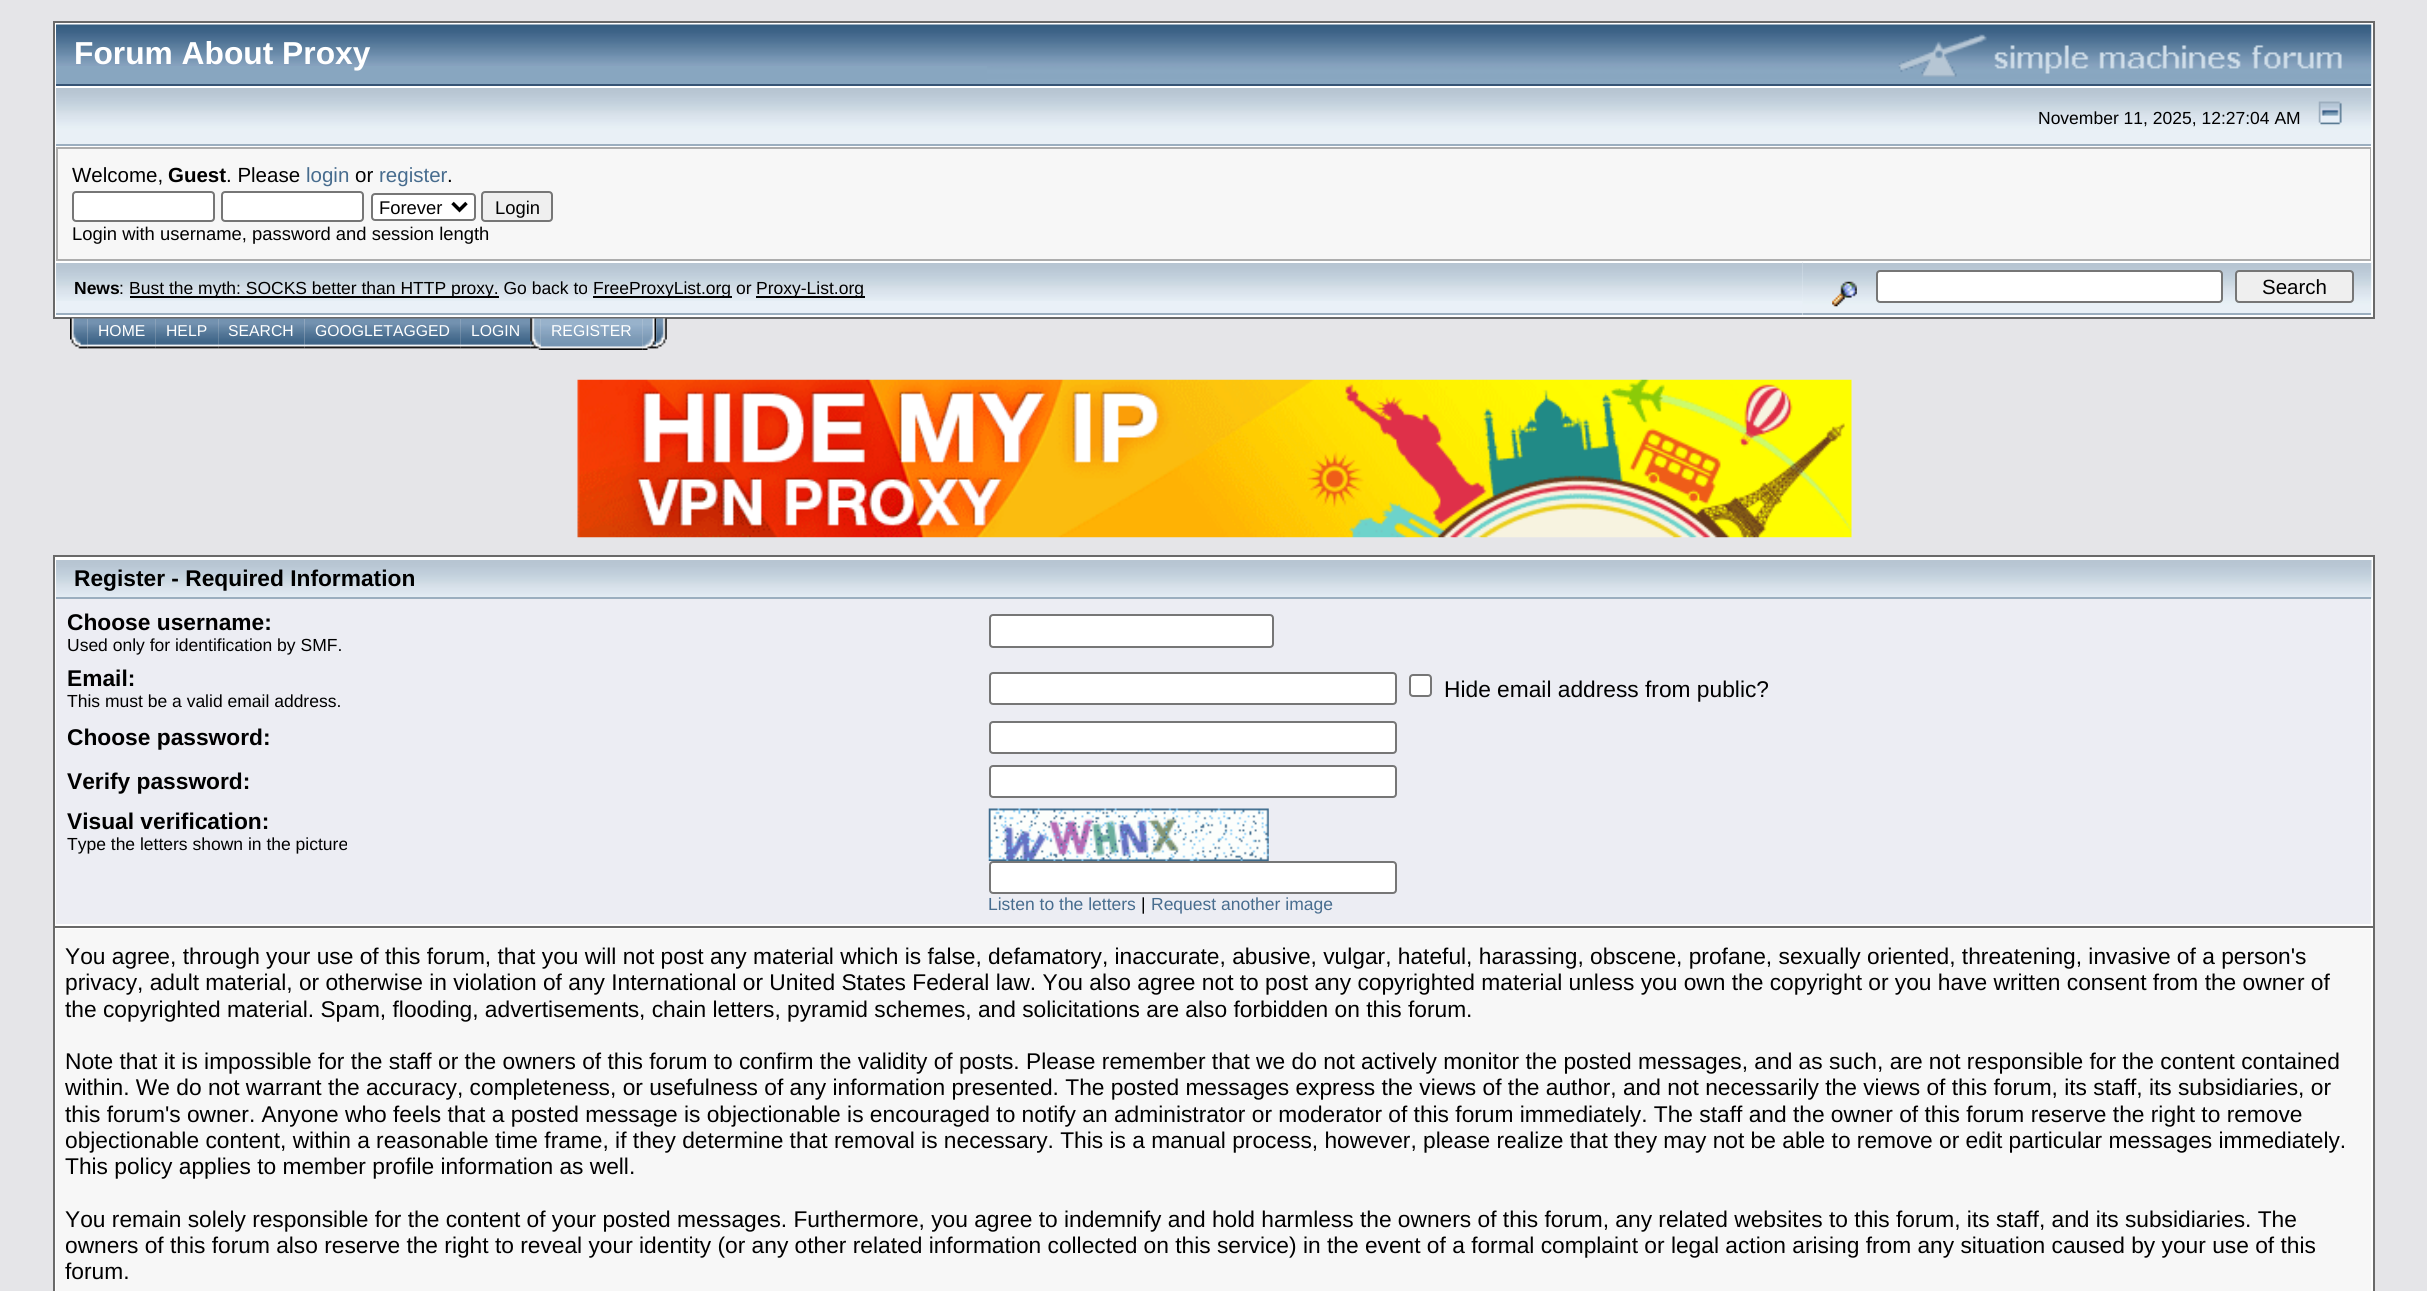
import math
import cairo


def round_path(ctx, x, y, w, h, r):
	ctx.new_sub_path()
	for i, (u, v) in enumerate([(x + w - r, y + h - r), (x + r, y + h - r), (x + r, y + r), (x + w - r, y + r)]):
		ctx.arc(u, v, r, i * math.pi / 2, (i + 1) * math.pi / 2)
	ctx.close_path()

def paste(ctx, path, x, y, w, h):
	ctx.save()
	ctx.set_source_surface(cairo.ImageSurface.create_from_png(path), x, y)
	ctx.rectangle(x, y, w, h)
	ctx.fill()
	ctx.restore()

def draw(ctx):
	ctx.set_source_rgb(0.898, 0.898, 0.91)
	ctx.paint()
	ctx.set_source_rgb(1, 1, 1)
	ctx.rectangle(54, 22, 2320, 296)
	ctx.fill_preserve()
	ctx.set_source_rgb(0.412, 0.412, 0.412)
	ctx.stroke()
	ctx.set_source_rgb(0.533, 0.651, 0.753)
	ctx.rectangle(56, 66, 931, 18)
	ctx.fill()
	paste(ctx, 'media/1.png', 56, 24, 931, 42)
	ctx.set_source_rgb(0.216, 0.333, 0.463)
	ctx.rectangle(56, 84, 931, 2)
	ctx.fill()
	ctx.select_font_face('Liberation Sans', cairo.FONT_SLANT_NORMAL, cairo.FONT_WEIGHT_BOLD)
	ctx.set_font_size(31.75)
	ctx.set_source_rgb(1, 1, 1)
	ctx.move_to(74, 64)
	ctx.show_text('Forum About Proxy')
	paste(ctx, 'media/2.png', 987, 24, 1385, 62)
	ctx.set_source_rgb(0.216, 0.333, 0.463)
	ctx.rectangle(987, 84, 1384, 2)
	ctx.fill()
	paste(ctx, 'media/3.png', 1898, 34, 444, 43)
	paste(ctx, 'media/4.png', 56, 87, 2316, 59)
	ctx.set_source_rgb(1, 1, 1)
	ctx.rectangle(56, 87, 2315, 1)
	ctx.fill()
	ctx.set_source_rgb(0.608, 0.682, 0.749)
	ctx.rectangle(56, 144, 2315, 2)
	ctx.fill()
	ctx.select_font_face('Liberation Sans')
	ctx.set_font_size(17.5)
	ctx.set_source_rgb(0, 0, 0)
	ctx.move_to(2038, 124)
	ctx.show_text('November 11, 2025, 12:27:04 AM')
	paste(ctx, 'media/5.png', 2318, 101, 24, 24)
	ctx.set_source_rgb(0.678, 0.678, 0.678)
	ctx.rectangle(56, 147, 2315, 114)
	ctx.fill()
	ctx.set_source_rgb(0.965, 0.965, 0.965)
	ctx.rectangle(58, 149, 2312, 110)
	ctx.fill()
	ctx.set_font_size(20.5)
	ctx.set_source_rgb(0, 0, 0)
	ctx.move_to(72, 182)
	ctx.show_text('Welcome,')
	ctx.select_font_face('Liberation Sans', cairo.FONT_SLANT_NORMAL, cairo.FONT_WEIGHT_BOLD)
	ctx.move_to(168, 182)
	ctx.show_text('Guest')
	ctx.select_font_face('Liberation Sans')
	ctx.move_to(226, 182)
	ctx.show_text('. Please')
	ctx.set_source_rgb(0.278, 0.424, 0.557)
	ctx.move_to(306, 182)
	ctx.show_text('login')
	ctx.set_source_rgb(0, 0, 0)
	ctx.move_to(355, 182)
	ctx.show_text('or')
	ctx.set_source_rgb(0.278, 0.424, 0.557)
	ctx.move_to(379, 182)
	ctx.show_text('register')
	ctx.set_source_rgb(0, 0, 0)
	ctx.move_to(447, 182)
	ctx.show_text('.')
	ctx.set_source_rgb(1, 1, 1)
	round_path(ctx, 73, 192, 141, 29, 3)
	ctx.fill_preserve()
	ctx.set_source_rgb(0.463, 0.463, 0.463)
	ctx.stroke()
	ctx.set_source_rgb(1, 1, 1)
	round_path(ctx, 222, 192, 141, 29, 3)
	ctx.fill_preserve()
	ctx.set_source_rgb(0.463, 0.463, 0.463)
	ctx.stroke()
	ctx.set_source_rgb(1, 1, 1)
	round_path(ctx, 372, 194, 103, 26, 3)
	ctx.fill_preserve()
	ctx.set_source_rgb(0.463, 0.463, 0.463)
	ctx.stroke()
	ctx.new_path()
	ctx.move_to(452.5, 203)
	ctx.line_to(459.5, 210)
	ctx.line_to(466.5, 203)
	ctx.set_source_rgb(0, 0, 0)
	ctx.set_line_width(3.5)
	ctx.stroke()
	ctx.set_font_size(18.4)
	ctx.move_to(379, 214)
	ctx.show_text('Forever')
	ctx.set_source_rgb(0.937, 0.937, 0.937)
	round_path(ctx, 482, 192, 70, 29, 3)
	ctx.fill_preserve()
	ctx.set_source_rgb(0.463, 0.463, 0.463)
	ctx.set_line_width(2)
	ctx.stroke()
	ctx.set_source_rgb(0, 0, 0)
	ctx.move_to(495, 214)
	ctx.show_text('Login')
	ctx.move_to(72, 240)
	ctx.show_text('Login with username, password and session length')
	ctx.set_source_rgb(0.914, 0.941, 0.965)
	ctx.rectangle(56, 263, 1747, 50)
	ctx.fill()
	paste(ctx, 'media/6.png', 56, 263, 1747, 38)
	ctx.set_source_rgb(0.608, 0.682, 0.749)
	ctx.rectangle(56, 313, 1747, 2)
	ctx.fill()
	ctx.select_font_face('Liberation Sans', cairo.FONT_SLANT_NORMAL, cairo.FONT_WEIGHT_BOLD)
	ctx.set_font_size(17.5)
	ctx.set_source_rgb(0, 0, 0)
	ctx.move_to(74, 294)
	ctx.show_text('News')
	ctx.select_font_face('Liberation Sans')
	ctx.move_to(119, 294)
	ctx.show_text(':')
	ctx.rectangle(130, 296, 369, 2)
	ctx.fill()
	ctx.move_to(129, 294)
	ctx.show_text('Bust the myth: SOCKS better than HTTP proxy. Go back to')
	ctx.rectangle(593, 296, 139, 2)
	ctx.fill()
	ctx.move_to(593, 294)
	ctx.show_text('FreeProxyList.org or')
	ctx.rectangle(756, 296, 109, 2)
	ctx.fill()
	ctx.move_to(756, 294)
	ctx.show_text('Proxy-List.org')
	paste(ctx, 'media/7.png', 1802, 262, 570, 53)
	ctx.set_source_rgb(1, 1, 1)
	ctx.rectangle(1803, 262, 568, 1)
	ctx.fill()
	ctx.set_source_rgb(0.608, 0.682, 0.749)
	ctx.rectangle(1803, 313, 568, 2)
	ctx.fill()
	paste(ctx, 'media/8.png', 1832, 281, 25, 26)
	ctx.set_source_rgb(1, 1, 1)
	round_path(ctx, 1877, 271, 345, 31, 3)
	ctx.fill_preserve()
	ctx.set_source_rgb(0.463, 0.463, 0.463)
	ctx.stroke()
	ctx.set_source_rgb(0.937, 0.937, 0.937)
	round_path(ctx, 2236, 271, 117, 31, 3)
	ctx.fill_preserve()
	ctx.set_source_rgb(0.463, 0.463, 0.463)
	ctx.stroke()
	ctx.set_font_size(20.5)
	ctx.set_source_rgb(0, 0, 0)
	ctx.move_to(2262, 294)
	ctx.show_text('Search')
	paste(ctx, 'media/9.png', 70, 318, 18, 31)
	paste(ctx, 'media/10.png', 87, 318, 69, 31)
	ctx.set_font_size(15.75)
	ctx.set_source_rgb(1, 1, 1)
	ctx.move_to(98, 336)
	ctx.show_text('HOME')
	paste(ctx, 'media/11.png', 155, 318, 64, 31)
	ctx.move_to(166, 336)
	ctx.show_text('HELP')
	paste(ctx, 'media/12.png', 218, 318, 87, 31)
	ctx.move_to(228, 336)
	ctx.show_text('SEARCH')
	paste(ctx, 'media/13.png', 304, 318, 157, 31)
	ctx.move_to(315, 336)
	ctx.show_text('GOOGLETAGGED')
	paste(ctx, 'media/14.png', 460, 318, 71, 31)
	ctx.move_to(471, 336)
	ctx.show_text('LOGIN')
	paste(ctx, 'media/15.png', 530, 318, 11, 32)
	paste(ctx, 'media/16.png', 540, 318, 103, 32)
	ctx.move_to(551, 336)
	ctx.show_text('REGISTER')
	paste(ctx, 'media/17.png', 642, 318, 15, 32)
	paste(ctx, 'media/18.png', 656, 318, 11, 31)
	paste(ctx, 'media/19.png', 577, 379, 1275, 159)
	ctx.rectangle(54, 556, 2320, 371)
	ctx.fill_preserve()
	ctx.set_source_rgb(0.412, 0.412, 0.412)
	ctx.stroke()
	paste(ctx, 'media/20.png', 56, 559, 2316, 40)
	ctx.set_source_rgb(1, 1, 1)
	ctx.rectangle(56, 559, 2315, 1)
	ctx.fill()
	ctx.set_source_rgb(0.608, 0.682, 0.749)
	ctx.rectangle(56, 597, 2315, 2)
	ctx.fill()
	ctx.select_font_face('Liberation Sans', cairo.FONT_SLANT_NORMAL, cairo.FONT_WEIGHT_BOLD)
	ctx.set_font_size(22.75)
	ctx.set_source_rgb(0, 0, 0)
	ctx.move_to(74, 586)
	ctx.show_text('Register - Required Information')
	ctx.set_source_rgb(0.925, 0.929, 0.953)
	ctx.rectangle(56, 599, 2315, 325)
	ctx.fill()
	ctx.set_source_rgb(0, 0, 0)
	ctx.move_to(67, 630)
	ctx.show_text('Choose username:')
	ctx.select_font_face('Liberation Sans')
	ctx.set_font_size(17.5)
	ctx.move_to(67, 651)
	ctx.show_text('Used only for identification by SMF.')
	ctx.set_source_rgb(1, 1, 1)
	round_path(ctx, 990, 615, 283, 32, 3)
	ctx.fill_preserve()
	ctx.set_source_rgb(0.463, 0.463, 0.463)
	ctx.stroke()
	ctx.select_font_face('Liberation Sans', cairo.FONT_SLANT_NORMAL, cairo.FONT_WEIGHT_BOLD)
	ctx.set_font_size(22.75)
	ctx.set_source_rgb(0, 0, 0)
	ctx.move_to(67, 686)
	ctx.show_text('Email:')
	ctx.select_font_face('Liberation Sans')
	ctx.set_font_size(17.5)
	ctx.move_to(67, 707)
	ctx.show_text('This must be a valid email address.')
	ctx.set_source_rgb(1, 1, 1)
	round_path(ctx, 990, 673, 406, 31, 3)
	ctx.fill_preserve()
	ctx.set_source_rgb(0.463, 0.463, 0.463)
	ctx.stroke()
	ctx.set_source_rgb(1, 1, 1)
	round_path(ctx, 1410, 675, 21, 21, 3)
	ctx.fill_preserve()
	ctx.set_source_rgb(0.463, 0.463, 0.463)
	ctx.stroke()
	ctx.set_font_size(22.75)
	ctx.set_source_rgb(0, 0, 0)
	ctx.move_to(1444, 697)
	ctx.show_text('Hide email address from public?')
	ctx.select_font_face('Liberation Sans', cairo.FONT_SLANT_NORMAL, cairo.FONT_WEIGHT_BOLD)
	ctx.move_to(67, 745)
	ctx.show_text('Choose password:')
	ctx.set_source_rgb(1, 1, 1)
	round_path(ctx, 990, 722, 406, 31, 3)
	ctx.fill_preserve()
	ctx.set_source_rgb(0.463, 0.463, 0.463)
	ctx.stroke()
	ctx.set_source_rgb(0, 0, 0)
	ctx.move_to(67, 789)
	ctx.show_text('Verify password:')
	ctx.set_source_rgb(1, 1, 1)
	round_path(ctx, 990, 766, 406, 31, 3)
	ctx.fill_preserve()
	ctx.set_source_rgb(0.463, 0.463, 0.463)
	ctx.stroke()
	ctx.set_source_rgb(0, 0, 0)
	ctx.move_to(67, 829)
	ctx.show_text('Visual verification:')
	ctx.select_font_face('Liberation Sans')
	ctx.set_font_size(17.5)
	ctx.move_to(67, 850)
	ctx.show_text('Type the letters shown in the picture')
	paste(ctx, 'media/21.png', 988, 808, 281, 53)
	ctx.set_source_rgb(1, 1, 1)
	round_path(ctx, 990, 862, 406, 31, 3)
	ctx.fill_preserve()
	ctx.set_source_rgb(0.463, 0.463, 0.463)
	ctx.stroke()
	ctx.set_source_rgb(0.278, 0.424, 0.557)
	ctx.move_to(988, 910)
	ctx.show_text('Listen to the letters')
	ctx.set_source_rgb(0, 0, 0)
	ctx.move_to(1141, 910)
	ctx.show_text('|')
	ctx.set_source_rgb(0.278, 0.424, 0.557)
	ctx.move_to(1151, 910)
	ctx.show_text('Request another image')
	ctx.set_source_rgb(1, 1, 1)
	ctx.rectangle(55, 928, 2318, 363)
	ctx.fill()
	ctx.set_source_rgb(0.412, 0.412, 0.412)
	ctx.rectangle(2373, 928, 2, 363)
	ctx.rectangle(53, 928, 2, 363)
	ctx.fill()
	ctx.set_source_rgb(0.965, 0.965, 0.965)
	ctx.rectangle(56, 929, 2315, 362)
	ctx.fill()
	ctx.set_font_size(22.75)
	ctx.set_source_rgb(0, 0, 0)
	for x, y, s in [
		(65, 964, 'You agree, through your use of this forum, that you will not post any material which is false, defamatory, inaccurate, abusive, vulgar, hateful, harassing, obscene, profane, sexually oriented, threatening, invasive of a person\'s'),
		(65, 990, 'privacy, adult material, or otherwise in violation of any International or United States Federal law. You also agree not to post any copyrighted material unless you own the copyright or you have written consent from the owner of'),
		(65, 1017, 'the copyrighted material. Spam, flooding, advertisements, chain letters, pyramid schemes, and solicitations are also forbidden on this forum.'),
		(65, 1069, 'Note that it is impossible for the staff or the owners of this forum to confirm the validity of posts. Please remember that we do not actively monitor the posted messages, and as such, are not responsible for the content contained'),
		(65, 1095, 'within. We do not warrant the accuracy, completeness, or usefulness of any information presented. The posted messages express the views of the author, and not necessarily the views of this forum, its staff, its subsidiaries, or'),
		(65, 1122, 'this forum\'s owner. Anyone who feels that a posted message is objectionable is encouraged to notify an administrator or moderator of this forum immediately. The staff and the owner of this forum reserve the right to remove'),
		(65, 1148, 'objectionable content, within a reasonable time frame, if they determine that removal is necessary. This is a manual process, however, please realize that they may not be able to remove or edit particular messages immediately.'),
		(65, 1174, 'This policy applies to member profile information as well.'),
		(65, 1227, 'You remain solely responsible for the content of your posted messages. Furthermore, you agree to indemnify and hold harmless the owners of this forum, any related websites to this forum, its staff, and its subsidiaries. The'),
		(65, 1253, 'owners of this forum also reserve the right to reveal your identity (or any other related information collected on this service) in the event of a formal complaint or legal action arising from any situation caused by your use of this'),
		(65, 1279, 'forum.'),
	]:
		ctx.move_to(x, y)
		ctx.show_text(s)


surface = cairo.ImageSurface(cairo.FORMAT_RGB24, 2427, 1291)
ctx = cairo.Context(surface)
options = cairo.FontOptions()
options.set_hint_metrics(cairo.HINT_METRICS_OFF)
options.set_hint_style(cairo.HINT_STYLE_NONE)
ctx.set_font_options(options)
ctx.set_miter_limit(4)
draw(ctx)
surface.write_to_png('image.png')
